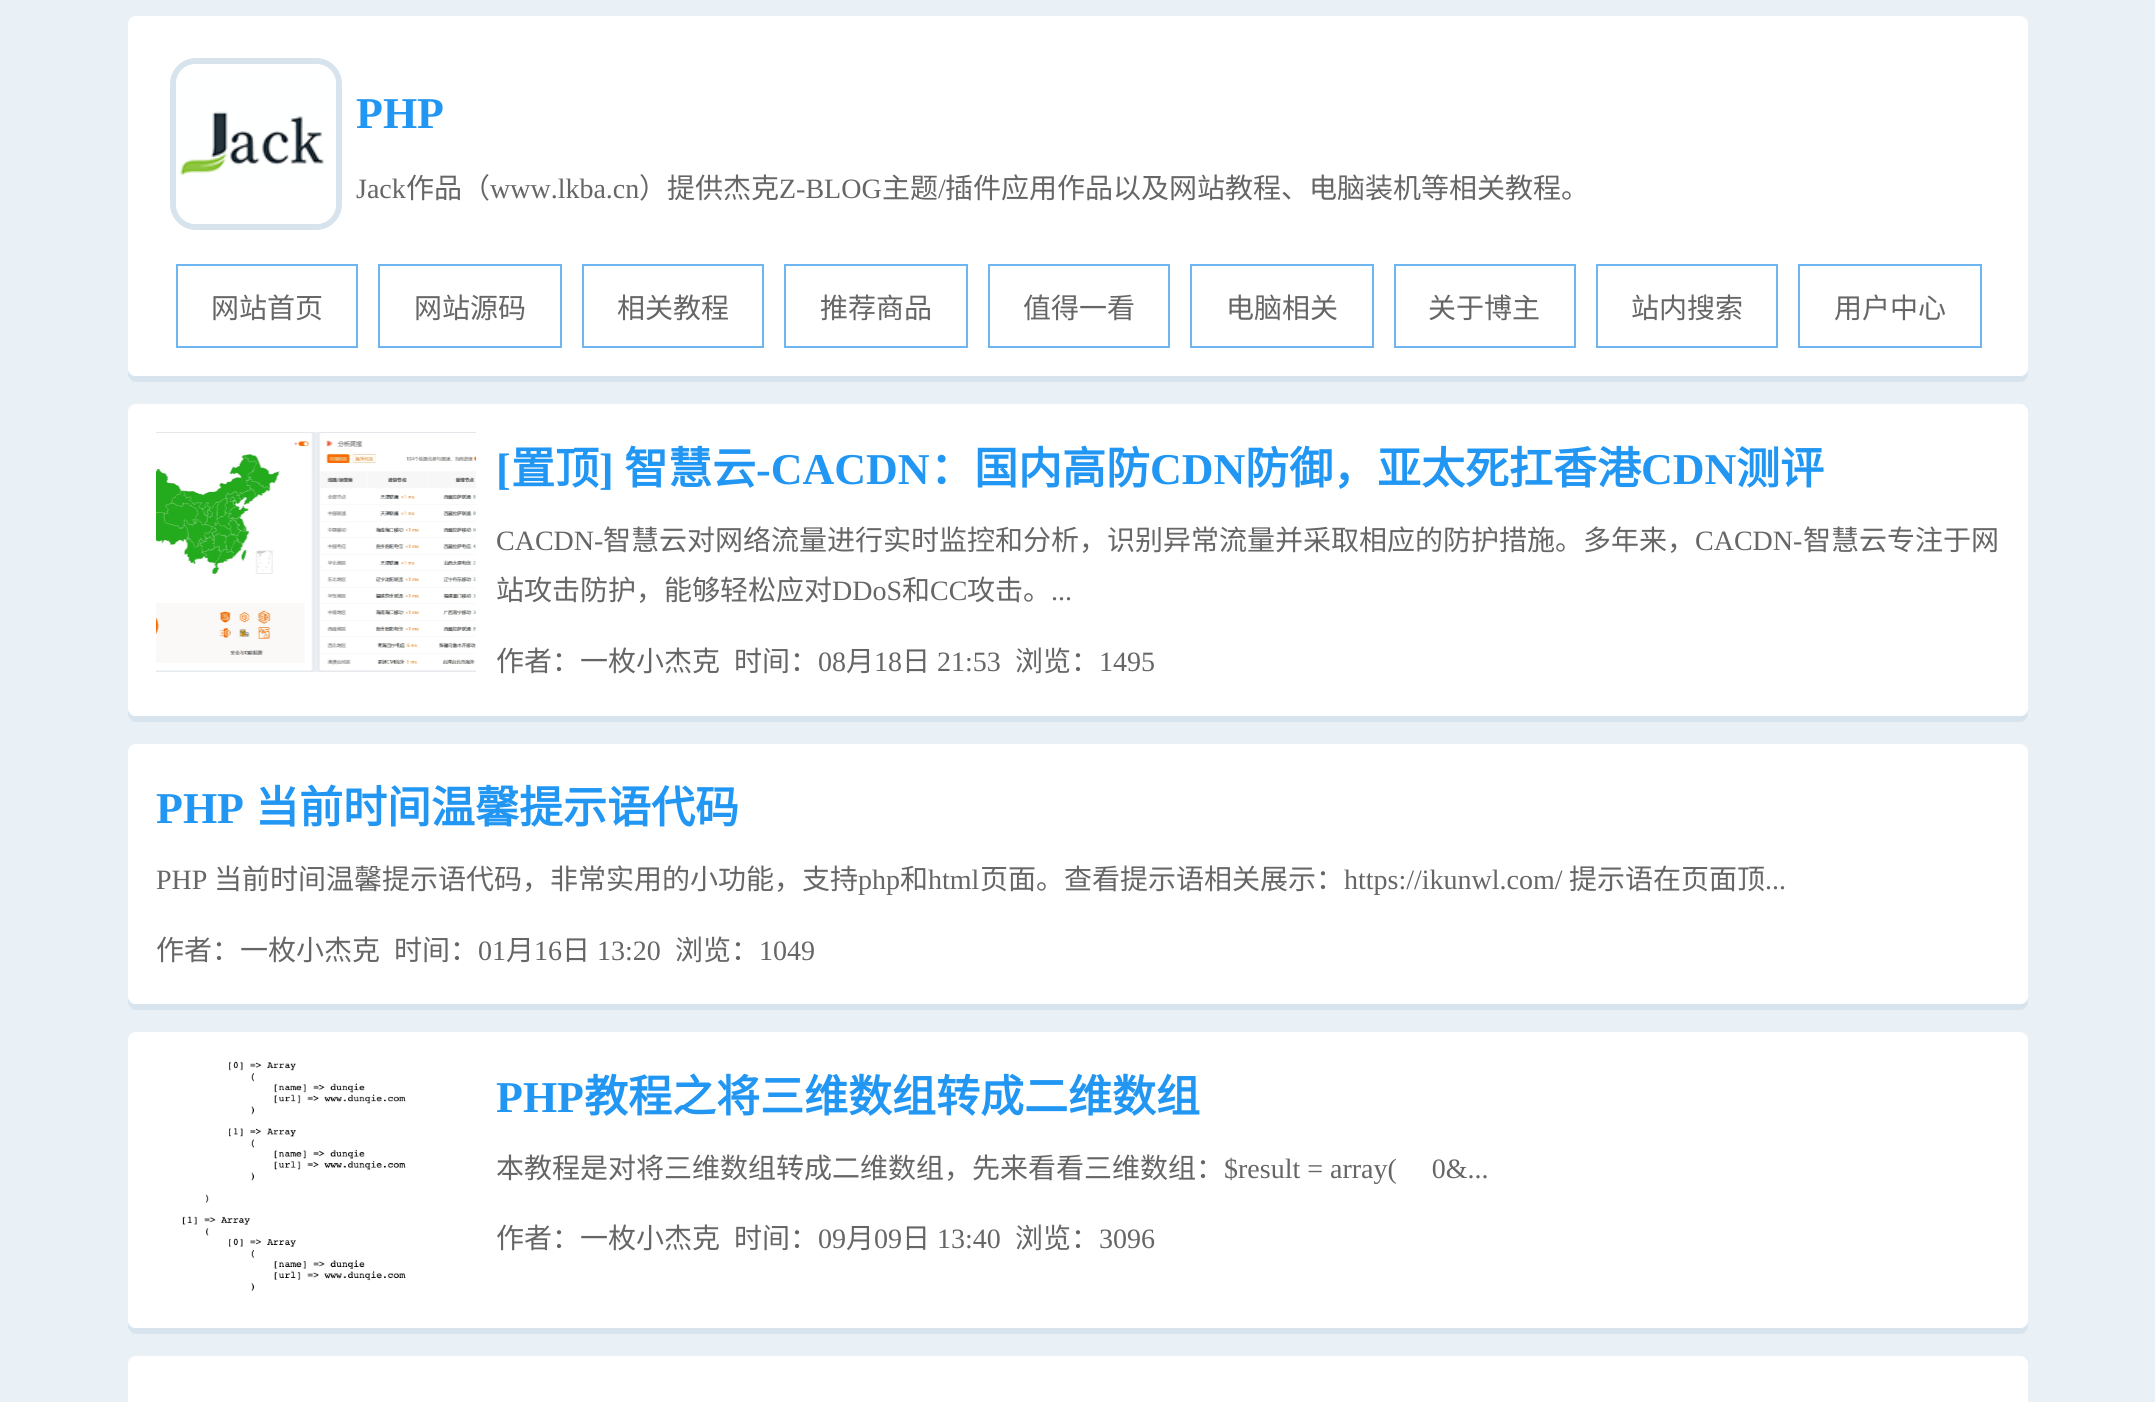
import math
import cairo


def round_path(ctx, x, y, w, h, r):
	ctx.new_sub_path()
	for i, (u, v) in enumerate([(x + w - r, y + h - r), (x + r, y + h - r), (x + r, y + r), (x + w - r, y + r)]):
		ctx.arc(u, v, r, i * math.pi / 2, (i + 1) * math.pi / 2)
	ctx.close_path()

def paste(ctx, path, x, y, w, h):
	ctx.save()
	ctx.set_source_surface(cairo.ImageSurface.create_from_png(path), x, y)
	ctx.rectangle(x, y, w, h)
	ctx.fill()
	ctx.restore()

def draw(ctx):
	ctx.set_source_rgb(0.914, 0.941, 0.961)
	ctx.paint()
	ctx.set_source_rgb(0.843, 0.894, 0.929)
	ctx.new_path()
	ctx.move_to(128, 369)
	ctx.line_to(128, 374)
	ctx.curve_to(128, 378, 132, 382, 136, 382)
	ctx.line_to(2020, 382)
	ctx.curve_to(2024, 382, 2028, 378, 2028, 374)
	ctx.line_to(2028, 369)
	ctx.curve_to(2028, 373, 2025, 376, 2021, 376)
	ctx.line_to(135, 376)
	ctx.curve_to(131, 376, 128, 373, 128, 369)
	ctx.close_path()
	ctx.fill()
	ctx.set_source_rgb(1, 1, 1)
	round_path(ctx, 128, 16, 1900, 360, 8)
	ctx.fill()
	round_path(ctx, 173, 61, 166, 166, 23)
	ctx.set_source_rgb(0.843, 0.894, 0.929)
	ctx.set_line_width(6)
	ctx.stroke()
	paste(ctx, 'media/1.png', 176, 64, 160, 160)
	ctx.select_font_face('Liberation Serif', cairo.FONT_SLANT_NORMAL, cairo.FONT_WEIGHT_BOLD)
	ctx.set_font_size(44)
	ctx.set_source_rgb(0.129, 0.588, 0.953)
	ctx.move_to(356, 128)
	ctx.show_text('PHP')
	ctx.select_font_face('Liberation Serif')
	ctx.set_font_size(28)
	ctx.set_source_rgb(0.4, 0.4, 0.4)
	ctx.move_to(356, 198)
	ctx.show_text('Jack')
	ctx.select_font_face('Noto Sans CJK SC')
	ctx.move_to(406, 198)
	ctx.show_text('作品（')
	ctx.select_font_face('Liberation Serif')
	ctx.move_to(490, 198)
	ctx.show_text('www.lkba.cn')
	ctx.select_font_face('Noto Sans CJK SC')
	ctx.move_to(639, 198)
	ctx.show_text('）提供杰克')
	ctx.select_font_face('Liberation Serif')
	ctx.move_to(779, 198)
	ctx.show_text('Z-BLOG')
	ctx.select_font_face('Noto Sans CJK SC')
	ctx.move_to(882, 198)
	ctx.show_text('主题')
	ctx.select_font_face('Liberation Serif')
	ctx.move_to(938, 198)
	ctx.show_text('/')
	ctx.select_font_face('Noto Sans CJK SC')
	ctx.move_to(945, 198)
	ctx.show_text('插件应用作品以及网站教程、电脑装机等相关教程。')
	ctx.rectangle(177, 265, 180, 82)
	ctx.set_source_rgb(0.431, 0.714, 0.949)
	ctx.set_line_width(2)
	ctx.stroke()
	ctx.set_source_rgb(0.4, 0.4, 0.4)
	ctx.move_to(211, 318)
	ctx.show_text('网站首页')
	ctx.rectangle(379, 265, 182, 82)
	ctx.set_source_rgb(0.431, 0.714, 0.949)
	ctx.stroke()
	ctx.set_source_rgb(0.4, 0.4, 0.4)
	ctx.move_to(414, 318)
	ctx.show_text('网站源码')
	ctx.rectangle(583, 265, 180, 82)
	ctx.set_source_rgb(0.431, 0.714, 0.949)
	ctx.stroke()
	ctx.set_source_rgb(0.4, 0.4, 0.4)
	ctx.move_to(617, 318)
	ctx.show_text('相关教程')
	ctx.rectangle(785, 265, 182, 82)
	ctx.set_source_rgb(0.431, 0.714, 0.949)
	ctx.stroke()
	ctx.set_source_rgb(0.4, 0.4, 0.4)
	ctx.move_to(820, 318)
	ctx.show_text('推荐商品')
	ctx.rectangle(989, 265, 180, 82)
	ctx.set_source_rgb(0.431, 0.714, 0.949)
	ctx.stroke()
	ctx.set_source_rgb(0.4, 0.4, 0.4)
	ctx.move_to(1023, 318)
	ctx.show_text('值得一看')
	ctx.rectangle(1191, 265, 182, 82)
	ctx.set_source_rgb(0.431, 0.714, 0.949)
	ctx.stroke()
	ctx.set_source_rgb(0.4, 0.4, 0.4)
	ctx.move_to(1226, 318)
	ctx.show_text('电脑相关')
	ctx.rectangle(1395, 265, 180, 82)
	ctx.set_source_rgb(0.431, 0.714, 0.949)
	ctx.stroke()
	ctx.set_source_rgb(0.4, 0.4, 0.4)
	ctx.move_to(1428, 318)
	ctx.show_text('关于博主')
	ctx.rectangle(1597, 265, 180, 82)
	ctx.set_source_rgb(0.431, 0.714, 0.949)
	ctx.stroke()
	ctx.set_source_rgb(0.4, 0.4, 0.4)
	ctx.move_to(1631, 318)
	ctx.show_text('站内搜索')
	ctx.rectangle(1799, 265, 182, 82)
	ctx.set_source_rgb(0.431, 0.714, 0.949)
	ctx.stroke()
	ctx.set_source_rgb(0.4, 0.4, 0.4)
	ctx.move_to(1834, 318)
	ctx.show_text('用户中心')
	ctx.set_source_rgb(0.843, 0.894, 0.929)
	ctx.new_path()
	ctx.move_to(128, 709)
	ctx.line_to(128, 714)
	ctx.curve_to(128, 718, 132, 722, 136, 722)
	ctx.line_to(2020, 722)
	ctx.curve_to(2024, 722, 2028, 718, 2028, 714)
	ctx.line_to(2028, 709)
	ctx.curve_to(2028, 713, 2025, 716, 2021, 716)
	ctx.line_to(135, 716)
	ctx.curve_to(131, 716, 128, 713, 128, 709)
	ctx.close_path()
	ctx.fill()
	ctx.set_source_rgb(1, 1, 1)
	round_path(ctx, 128, 404, 1900, 312, 8)
	ctx.fill()
	paste(ctx, 'media/2.png', 156, 432, 320, 240)
	ctx.select_font_face('Liberation Serif', cairo.FONT_SLANT_NORMAL, cairo.FONT_WEIGHT_BOLD)
	ctx.set_font_size(44)
	ctx.set_source_rgb(0.129, 0.588, 0.953)
	ctx.move_to(496, 484)
	ctx.show_text('[')
	ctx.select_font_face('Noto Sans CJK SC', cairo.FONT_SLANT_NORMAL, cairo.FONT_WEIGHT_BOLD)
	ctx.move_to(511, 484)
	ctx.show_text('置顶')
	ctx.select_font_face('Liberation Serif', cairo.FONT_SLANT_NORMAL, cairo.FONT_WEIGHT_BOLD)
	ctx.move_to(599, 484)
	ctx.show_text(']')
	ctx.select_font_face('Noto Sans CJK SC', cairo.FONT_SLANT_NORMAL, cairo.FONT_WEIGHT_BOLD)
	ctx.move_to(624, 484)
	ctx.show_text('智慧云')
	ctx.select_font_face('Liberation Serif', cairo.FONT_SLANT_NORMAL, cairo.FONT_WEIGHT_BOLD)
	ctx.move_to(756, 484)
	ctx.show_text('-CACDN')
	ctx.select_font_face('Noto Sans CJK SC', cairo.FONT_SLANT_NORMAL, cairo.FONT_WEIGHT_BOLD)
	ctx.move_to(930, 484)
	ctx.show_text('：国内高防')
	ctx.select_font_face('Liberation Serif', cairo.FONT_SLANT_NORMAL, cairo.FONT_WEIGHT_BOLD)
	ctx.move_to(1150, 484)
	ctx.show_text('CDN')
	ctx.select_font_face('Noto Sans CJK SC', cairo.FONT_SLANT_NORMAL, cairo.FONT_WEIGHT_BOLD)
	ctx.move_to(1245, 484)
	ctx.show_text('防御，亚太死扛香港')
	ctx.select_font_face('Liberation Serif', cairo.FONT_SLANT_NORMAL, cairo.FONT_WEIGHT_BOLD)
	ctx.move_to(1641, 484)
	ctx.show_text('CDN')
	ctx.select_font_face('Noto Sans CJK SC', cairo.FONT_SLANT_NORMAL, cairo.FONT_WEIGHT_BOLD)
	ctx.move_to(1736, 484)
	ctx.show_text('测评')
	ctx.select_font_face('Liberation Serif')
	ctx.set_font_size(28)
	ctx.set_source_rgb(0.4, 0.4, 0.4)
	ctx.move_to(496, 550)
	ctx.show_text('CACDN-')
	ctx.select_font_face('Noto Sans CJK SC')
	ctx.move_to(603, 550)
	ctx.show_text('智慧云对网络流量进行实时监控和分析，识别异常流量并采取相应的防护措施。多年来，')
	ctx.select_font_face('Liberation Serif')
	ctx.move_to(1695, 550)
	ctx.show_text('CACDN-')
	ctx.select_font_face('Noto Sans CJK SC')
	ctx.move_to(1803, 550)
	ctx.show_text('智慧云专注于网')
	ctx.move_to(496, 600)
	ctx.show_text('站攻击防护，能够轻松应对')
	ctx.select_font_face('Liberation Serif')
	ctx.move_to(832, 600)
	ctx.show_text('DDoS')
	ctx.select_font_face('Noto Sans CJK SC')
	ctx.move_to(902, 600)
	ctx.show_text('和')
	ctx.select_font_face('Liberation Serif')
	ctx.move_to(930, 600)
	ctx.show_text('CC')
	ctx.select_font_face('Noto Sans CJK SC')
	ctx.move_to(967, 600)
	ctx.show_text('攻击。')
	ctx.select_font_face('Liberation Serif')
	ctx.move_to(1051, 600)
	ctx.show_text('...')
	ctx.select_font_face('Noto Sans CJK SC')
	ctx.move_to(496, 671)
	ctx.show_text('作者：一枚小杰克')
	ctx.move_to(734, 671)
	ctx.show_text('时间：')
	ctx.select_font_face('Liberation Serif')
	ctx.move_to(818, 671)
	ctx.show_text('08')
	ctx.select_font_face('Noto Sans CJK SC')
	ctx.move_to(846, 671)
	ctx.show_text('月')
	ctx.select_font_face('Liberation Serif')
	ctx.move_to(874, 671)
	ctx.show_text('18')
	ctx.select_font_face('Noto Sans CJK SC')
	ctx.move_to(902, 671)
	ctx.show_text('日')
	ctx.select_font_face('Liberation Serif')
	ctx.move_to(937, 671)
	ctx.show_text('21:53')
	ctx.select_font_face('Noto Sans CJK SC')
	ctx.move_to(1015, 671)
	ctx.show_text('浏览：')
	ctx.select_font_face('Liberation Serif')
	ctx.move_to(1099, 671)
	ctx.show_text('1495')
	ctx.set_source_rgb(0.843, 0.894, 0.929)
	ctx.new_path()
	ctx.move_to(128, 997)
	ctx.line_to(128, 1002)
	ctx.curve_to(128, 1006, 132, 1010, 136, 1010)
	ctx.line_to(2020, 1010)
	ctx.curve_to(2024, 1010, 2028, 1006, 2028, 1002)
	ctx.line_to(2028, 997)
	ctx.curve_to(2028, 1001, 2025, 1004, 2021, 1004)
	ctx.line_to(135, 1004)
	ctx.curve_to(131, 1004, 128, 1001, 128, 997)
	ctx.close_path()
	ctx.fill()
	ctx.set_source_rgb(1, 1, 1)
	round_path(ctx, 128, 744, 1900, 260, 8)
	ctx.fill()
	ctx.select_font_face('Liberation Serif', cairo.FONT_SLANT_NORMAL, cairo.FONT_WEIGHT_BOLD)
	ctx.set_font_size(44)
	ctx.set_source_rgb(0.129, 0.588, 0.953)
	ctx.move_to(156, 823)
	ctx.show_text('PHP')
	ctx.select_font_face('Noto Sans CJK SC', cairo.FONT_SLANT_NORMAL, cairo.FONT_WEIGHT_BOLD)
	ctx.move_to(255, 823)
	ctx.show_text('当前时间温馨提示语代码')
	ctx.select_font_face('Liberation Serif')
	ctx.set_font_size(28)
	ctx.set_source_rgb(0.4, 0.4, 0.4)
	ctx.move_to(156, 889)
	ctx.show_text('PHP')
	ctx.select_font_face('Noto Sans CJK SC')
	ctx.move_to(214, 889)
	ctx.show_text('当前时间温馨提示语代码，非常实用的小功能，支持')
	ctx.select_font_face('Liberation Serif')
	ctx.move_to(858, 889)
	ctx.show_text('php')
	ctx.select_font_face('Noto Sans CJK SC')
	ctx.move_to(900, 889)
	ctx.show_text('和')
	ctx.select_font_face('Liberation Serif')
	ctx.move_to(928, 889)
	ctx.show_text('html')
	ctx.select_font_face('Noto Sans CJK SC')
	ctx.move_to(980, 889)
	ctx.show_text('页面。查看提示语相关展示：')
	ctx.select_font_face('Liberation Serif')
	ctx.move_to(1344, 889)
	ctx.show_text('https://ikunwl.com/')
	ctx.select_font_face('Noto Sans CJK SC')
	ctx.move_to(1569, 889)
	ctx.show_text('提示语在页面顶')
	ctx.select_font_face('Liberation Serif')
	ctx.move_to(1765, 889)
	ctx.show_text('...')
	ctx.select_font_face('Noto Sans CJK SC')
	ctx.move_to(156, 960)
	ctx.show_text('作者：一枚小杰克')
	ctx.move_to(394, 960)
	ctx.show_text('时间：')
	ctx.select_font_face('Liberation Serif')
	ctx.move_to(478, 960)
	ctx.show_text('01')
	ctx.select_font_face('Noto Sans CJK SC')
	ctx.move_to(506, 960)
	ctx.show_text('月')
	ctx.select_font_face('Liberation Serif')
	ctx.move_to(534, 960)
	ctx.show_text('16')
	ctx.select_font_face('Noto Sans CJK SC')
	ctx.move_to(562, 960)
	ctx.show_text('日')
	ctx.select_font_face('Liberation Serif')
	ctx.move_to(597, 960)
	ctx.show_text('13:20')
	ctx.select_font_face('Noto Sans CJK SC')
	ctx.move_to(675, 960)
	ctx.show_text('浏览：')
	ctx.select_font_face('Liberation Serif')
	ctx.move_to(759, 960)
	ctx.show_text('1049')
	ctx.set_source_rgb(0.843, 0.894, 0.929)
	ctx.new_path()
	ctx.move_to(128, 1321)
	ctx.line_to(128, 1326)
	ctx.curve_to(128, 1330, 132, 1334, 136, 1334)
	ctx.line_to(2020, 1334)
	ctx.curve_to(2024, 1334, 2028, 1330, 2028, 1326)
	ctx.line_to(2028, 1321)
	ctx.curve_to(2028, 1325, 2025, 1328, 2021, 1328)
	ctx.line_to(135, 1328)
	ctx.curve_to(131, 1328, 128, 1325, 128, 1321)
	ctx.close_path()
	ctx.fill()
	ctx.set_source_rgb(1, 1, 1)
	round_path(ctx, 128, 1032, 1900, 296, 8)
	ctx.fill()
	paste(ctx, 'media/3.png', 182, 1061, 224, 231)
	ctx.select_font_face('Liberation Serif', cairo.FONT_SLANT_NORMAL, cairo.FONT_WEIGHT_BOLD)
	ctx.set_font_size(44)
	ctx.set_source_rgb(0.129, 0.588, 0.953)
	ctx.move_to(496, 1112)
	ctx.show_text('PHP')
	ctx.select_font_face('Noto Sans CJK SC', cairo.FONT_SLANT_NORMAL, cairo.FONT_WEIGHT_BOLD)
	ctx.move_to(584, 1112)
	ctx.show_text('教程之将三维数组转成二维数组')
	ctx.select_font_face('Noto Sans CJK SC')
	ctx.set_font_size(28)
	ctx.set_source_rgb(0.4, 0.4, 0.4)
	ctx.move_to(496, 1178)
	ctx.show_text('本教程是对将三维数组转成二维数组，先来看看三维数组：')
	ctx.select_font_face('Liberation Serif')
	ctx.move_to(1224, 1178)
	ctx.show_text('$result = array(     0&...')
	ctx.select_font_face('Noto Sans CJK SC')
	ctx.move_to(496, 1248)
	ctx.show_text('作者：一枚小杰克')
	ctx.move_to(734, 1248)
	ctx.show_text('时间：')
	ctx.select_font_face('Liberation Serif')
	ctx.move_to(818, 1248)
	ctx.show_text('09')
	ctx.select_font_face('Noto Sans CJK SC')
	ctx.move_to(846, 1248)
	ctx.show_text('月')
	ctx.select_font_face('Liberation Serif')
	ctx.move_to(874, 1248)
	ctx.show_text('09')
	ctx.select_font_face('Noto Sans CJK SC')
	ctx.move_to(902, 1248)
	ctx.show_text('日')
	ctx.select_font_face('Liberation Serif')
	ctx.move_to(937, 1248)
	ctx.show_text('13:40')
	ctx.select_font_face('Noto Sans CJK SC')
	ctx.move_to(1015, 1248)
	ctx.show_text('浏览：')
	ctx.select_font_face('Liberation Serif')
	ctx.move_to(1099, 1248)
	ctx.show_text('3096')
	ctx.set_source_rgb(1, 1, 1)
	round_path(ctx, 128, 1356, 1900, 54, 8)
	ctx.fill()


surface = cairo.ImageSurface(cairo.FORMAT_RGB24, 2155, 1402)
ctx = cairo.Context(surface)
options = cairo.FontOptions()
options.set_hint_metrics(cairo.HINT_METRICS_OFF)
options.set_hint_style(cairo.HINT_STYLE_NONE)
ctx.set_font_options(options)
ctx.set_miter_limit(4)
draw(ctx)
surface.write_to_png('image.png')
